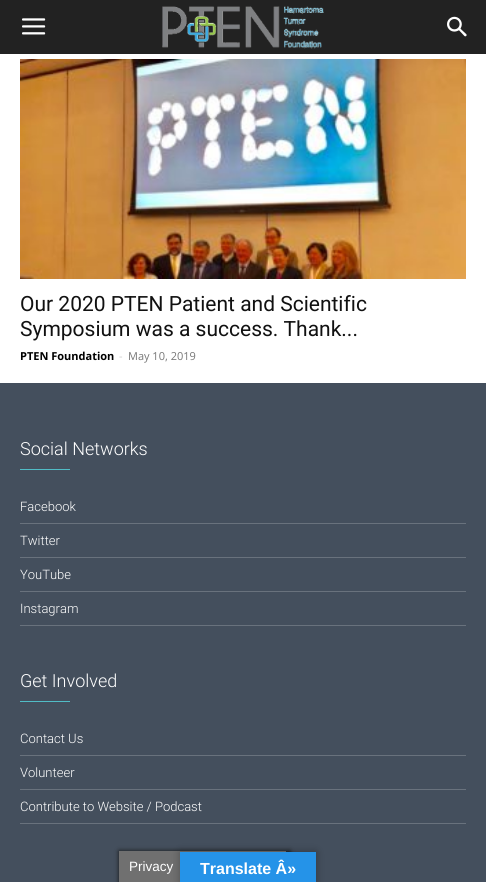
import math
import cairo


def round_path(ctx, x, y, w, h, r):
	ctx.new_sub_path()
	for i, (u, v) in enumerate([(x + w - r, y + h - r), (x + r, y + h - r), (x + r, y + r), (x + w - r, y + r)]):
		ctx.arc(u, v, r, i * math.pi / 2, (i + 1) * math.pi / 2)
	ctx.close_path()

def blur_box(ctx, x, y, w, h, r, blur, alpha):
	ctx.push_group_with_content(cairo.CONTENT_ALPHA)
	ctx.set_operator(cairo.OPERATOR_SOURCE)
	for i in range(15, -16, -2):
		e = blur * i / 6
		if min(w, h) + 2 * e > 0:
			ctx.set_source_rgba(0, 0, 0, alpha * math.erfc((i - 1) / 8.5) / 2)
			round_path(ctx, x - e, y - e, w + 2 * e, h + 2 * e, max(0, min(r + e + blur * .6, min(w, h) / 2 + e)))
			ctx.fill()
	ctx.mask(ctx.pop_group())

def paste(ctx, path, x, y, w, h):
	ctx.save()
	ctx.set_source_surface(cairo.ImageSurface.create_from_png(path), x, y)
	ctx.rectangle(x, y, w, h)
	ctx.fill()
	ctx.restore()

def draw(ctx):
	ctx.set_source_rgb(1, 1, 1)
	ctx.paint()
	ctx.set_source_rgb(0.133, 0.133, 0.133)
	ctx.rectangle(0, 0, 486, 54)
	ctx.fill()
	paste(ctx, 'media/1.png', 22, 18, 24, 17)
	paste(ctx, 'media/2.png', 162, 6, 162, 43)
	paste(ctx, 'media/3.png', 447, 16, 20, 21)
	paste(ctx, 'media/4.png', 20, 59, 446, 220)
	ctx.select_font_face('Roboto')
	ctx.set_font_size(21)
	ctx.set_source_rgb(0.067, 0.067, 0.067)
	ctx.move_to(20, 311)
	ctx.show_text('Our 2020 PTEN Patient and Scientific')
	ctx.move_to(20, 336)
	ctx.show_text('Symposium was a success. Thank...')
	ctx.select_font_face('Open Sans', cairo.FONT_SLANT_NORMAL, cairo.FONT_WEIGHT_BOLD)
	ctx.set_font_size(11)
	ctx.set_source_rgb(0, 0, 0)
	ctx.move_to(20, 360)
	ctx.show_text('PTEN Foundation')
	ctx.select_font_face('Open Sans')
	ctx.set_source_rgb(0.8, 0.8, 0.8)
	ctx.move_to(119, 360)
	ctx.show_text('-')
	ctx.set_source_rgb(0.463, 0.463, 0.463)
	ctx.move_to(128, 360)
	ctx.show_text('May 10, 2019')
	ctx.set_source_rgb(0.267, 0.31, 0.365)
	ctx.rectangle(0, 383, 486, 499)
	ctx.fill()
	ctx.select_font_face('Roboto Light')
	ctx.set_font_size(18)
	ctx.set_source_rgb(1, 1, 1)
	ctx.move_to(20, 455)
	ctx.show_text('Social Networks')
	ctx.set_source_rgb(0.318, 0.737, 0.776)
	ctx.rectangle(20, 469, 50, 1)
	ctx.fill()
	ctx.set_font_size(13)
	ctx.set_source_rgb(1, 1, 1)
	ctx.move_to(20, 511)
	ctx.show_text('Facebook')
	ctx.set_source_rgb(0.412, 0.447, 0.49)
	ctx.rectangle(20, 523, 446, 1)
	ctx.fill()
	ctx.set_source_rgb(1, 1, 1)
	ctx.move_to(20, 545)
	ctx.show_text('Twitter')
	ctx.set_source_rgb(0.412, 0.447, 0.49)
	ctx.rectangle(20, 557, 446, 1)
	ctx.fill()
	ctx.set_source_rgb(1, 1, 1)
	ctx.move_to(20, 579)
	ctx.show_text('YouTube')
	ctx.set_source_rgb(0.412, 0.447, 0.49)
	ctx.rectangle(20, 591, 446, 1)
	ctx.fill()
	ctx.set_source_rgb(1, 1, 1)
	ctx.move_to(20, 613)
	ctx.show_text('Instagram')
	ctx.set_source_rgb(0.412, 0.447, 0.49)
	ctx.rectangle(20, 625, 446, 1)
	ctx.fill()
	ctx.set_font_size(18)
	ctx.set_source_rgb(1, 1, 1)
	ctx.move_to(20, 687)
	ctx.show_text('Get Involved')
	ctx.set_source_rgb(0.318, 0.737, 0.776)
	ctx.rectangle(20, 701, 50, 1)
	ctx.fill()
	ctx.set_font_size(13)
	ctx.set_source_rgb(1, 1, 1)
	ctx.move_to(20, 743)
	ctx.show_text('Contact Us')
	ctx.set_source_rgb(0.412, 0.447, 0.49)
	ctx.rectangle(20, 755, 446, 1)
	ctx.fill()
	ctx.set_source_rgb(1, 1, 1)
	ctx.move_to(20, 777)
	ctx.show_text('Volunteer')
	ctx.set_source_rgb(0.412, 0.447, 0.49)
	ctx.rectangle(20, 789, 446, 1)
	ctx.fill()
	ctx.set_source_rgb(1, 1, 1)
	ctx.move_to(20, 811)
	ctx.show_text('Contribute to Website / Podcast')
	ctx.set_source_rgb(0.412, 0.447, 0.49)
	ctx.rectangle(20, 823, 446, 1)
	ctx.fill()
	ctx.set_source_rgb(0.086, 0.086, 0.086)
	blur_box(ctx, 119, 851, 171, 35, 0, 2.5, 1)
	ctx.set_source_rgb(0.439, 0.439, 0.439)
	ctx.rectangle(119, 851, 167, 31)
	ctx.fill()
	ctx.select_font_face('Liberation Sans')
	ctx.set_font_size(13.5)
	ctx.set_source_rgb(1, 1, 1)
	ctx.move_to(129, 871)
	ctx.show_text('Privacy')
	ctx.set_source_rgb(0, 0, 0)
	blur_box(ctx, 180, 852, 136, 30, 0, 4.5, 0.3)
	ctx.set_source_rgb(0.145, 0.576, 0.91)
	ctx.rectangle(180, 852, 136, 30)
	ctx.fill()
	ctx.select_font_face('Liberation Sans', cairo.FONT_SLANT_NORMAL, cairo.FONT_WEIGHT_BOLD)
	ctx.set_font_size(16)
	ctx.set_source_rgb(1, 1, 1)
	ctx.move_to(200, 874)
	ctx.show_text('Translate Â»')


surface = cairo.ImageSurface(cairo.FORMAT_RGB24, 486, 882)
ctx = cairo.Context(surface)
options = cairo.FontOptions()
options.set_hint_metrics(cairo.HINT_METRICS_OFF)
options.set_hint_style(cairo.HINT_STYLE_NONE)
ctx.set_font_options(options)
ctx.set_miter_limit(4)
draw(ctx)
surface.write_to_png('image.png')
